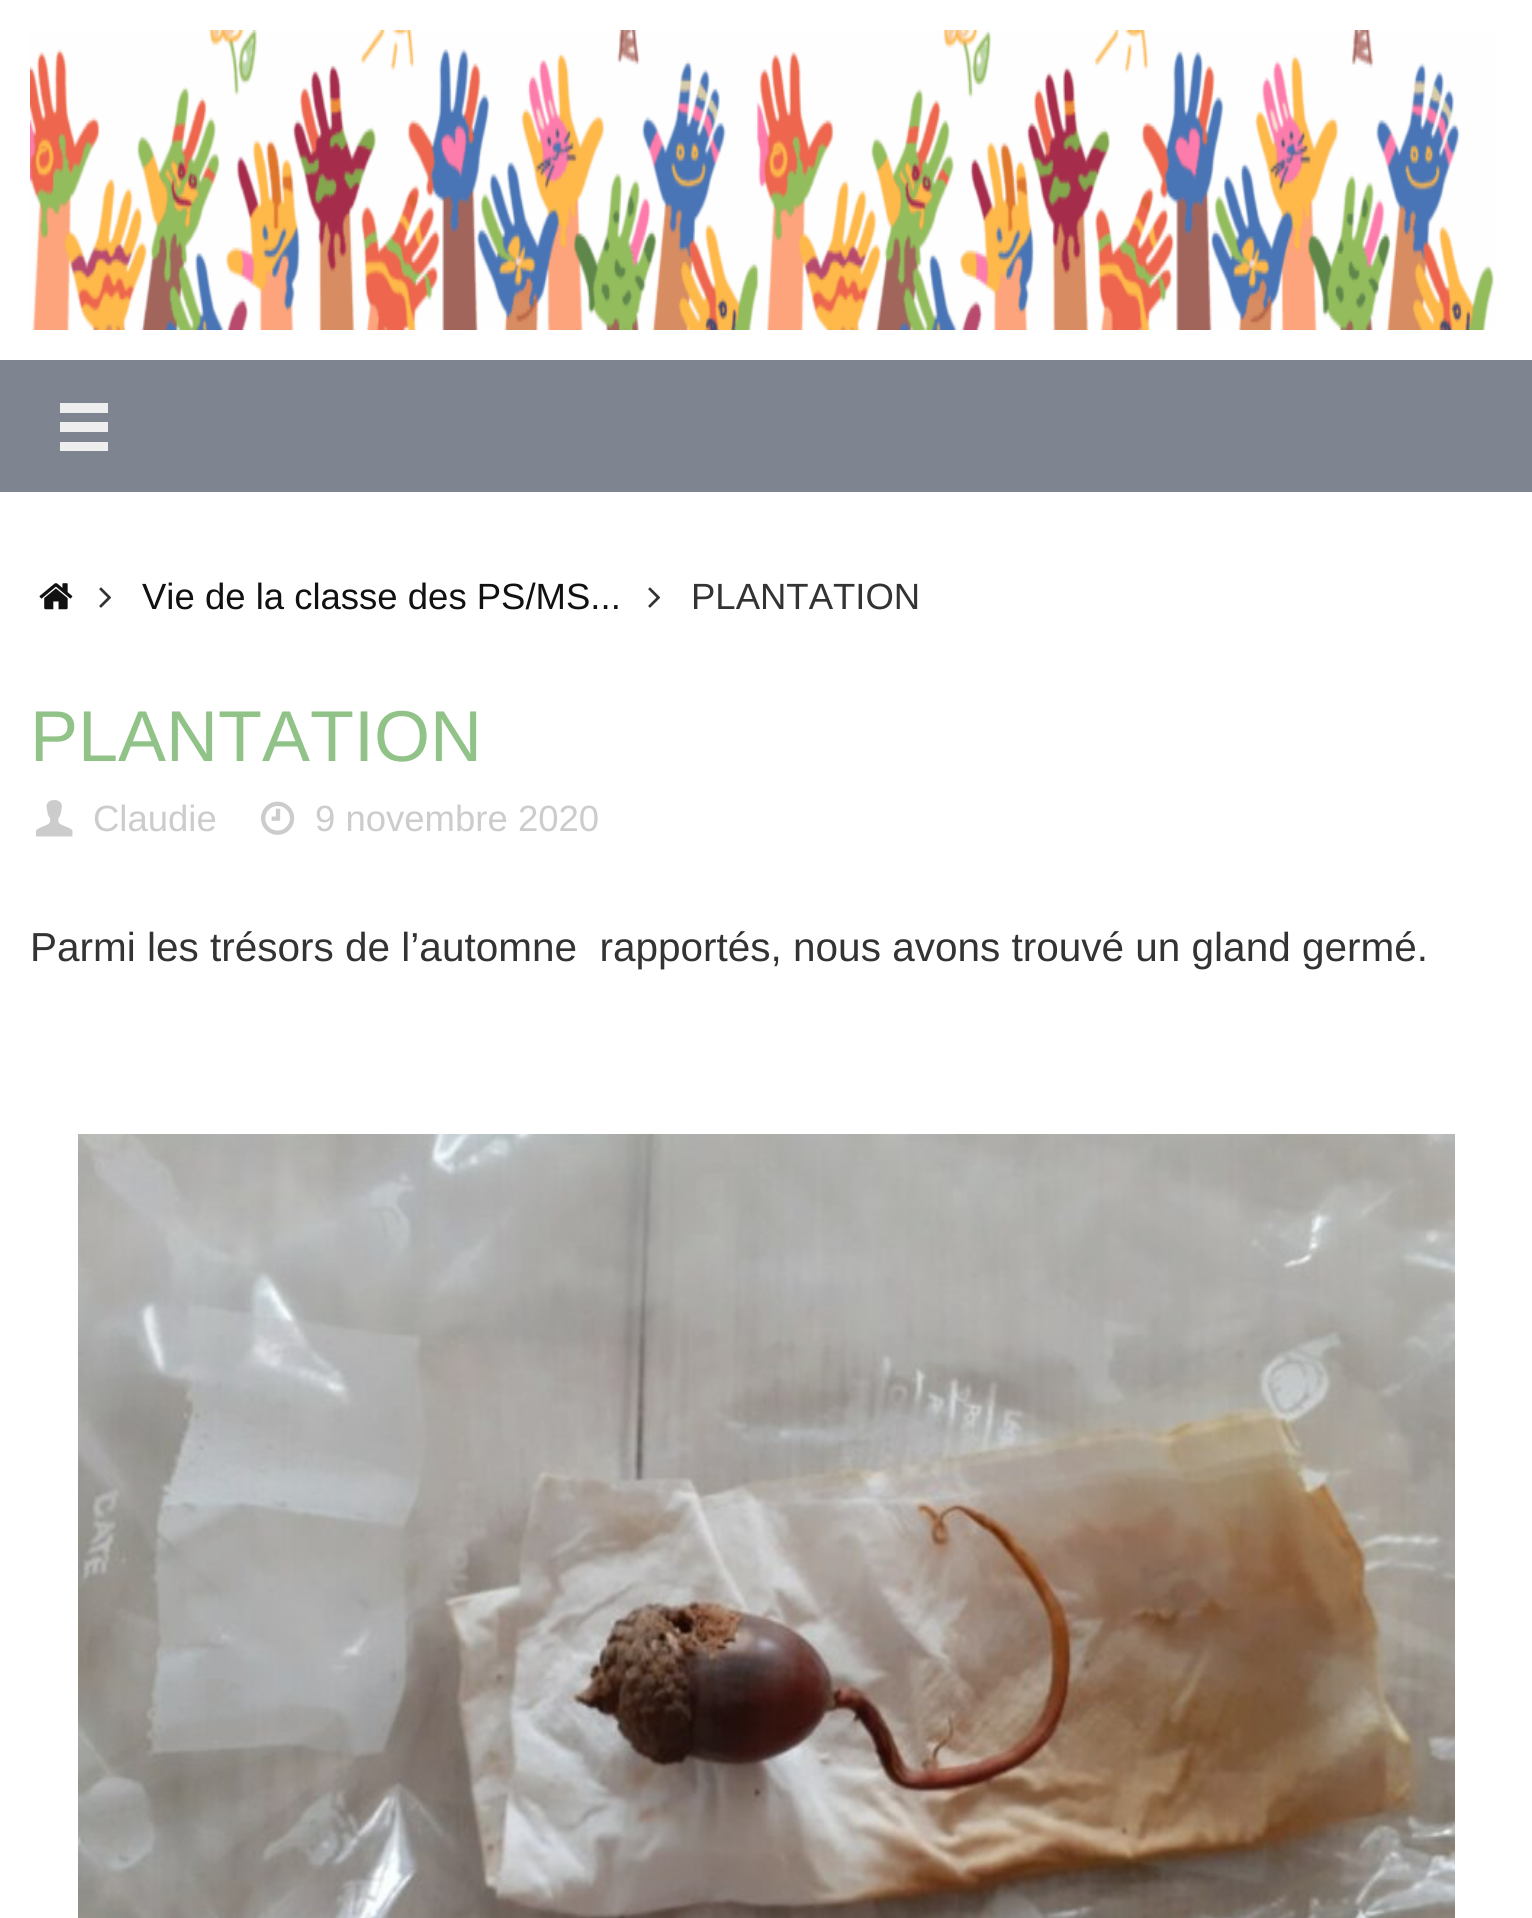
import math
import cairo


def paste(ctx, path, x, y, w, h):
	ctx.save()
	ctx.set_source_surface(cairo.ImageSurface.create_from_png(path), x, y)
	ctx.rectangle(x, y, w, h)
	ctx.fill()
	ctx.restore()

def draw(ctx):
	ctx.set_source_rgb(1, 1, 1)
	ctx.paint()
	paste(ctx, 'media/1.png', 30, 30, 1465, 300)
	ctx.set_source_rgb(0.498, 0.518, 0.569)
	ctx.rectangle(0, 360, 1532, 132)
	ctx.fill()
	ctx.set_source_rgb(0.933, 0.933, 0.933)
	ctx.new_path()
	ctx.move_to(60, 403)
	ctx.line_to(60, 413)
	ctx.line_to(108, 413)
	ctx.line_to(108, 403)
	ctx.close_path()
	ctx.move_to(60, 422)
	ctx.line_to(60, 432)
	ctx.line_to(108, 432)
	ctx.line_to(108, 422)
	ctx.close_path()
	ctx.move_to(60, 442)
	ctx.line_to(60, 451)
	ctx.line_to(108, 451)
	ctx.line_to(108, 442)
	ctx.close_path()
	ctx.fill()
	paste(ctx, 'media/2.png', 39, 583, 34, 27)
	paste(ctx, 'media/3.png', 99, 587, 13, 21)
	ctx.select_font_face('Liberation Sans')
	ctx.set_font_size(36.5)
	ctx.set_source_rgb(0.067, 0.067, 0.067)
	ctx.move_to(142, 609)
	ctx.show_text('Vie de la classe des PS/MS...')
	paste(ctx, 'media/3.png', 648, 587, 13, 21)
	ctx.set_source_rgb(0.2, 0.2, 0.2)
	ctx.move_to(691, 609)
	ctx.show_text('PLANTATION')
	ctx.set_font_size(72)
	ctx.set_source_rgb(0.569, 0.765, 0.533)
	ctx.move_to(30, 761)
	ctx.show_text('PLANTATION')
	paste(ctx, 'media/4.png', 36, 800, 37, 37)
	ctx.set_font_size(36.5)
	ctx.set_source_rgb(0.8, 0.8, 0.8)
	ctx.move_to(93, 831)
	ctx.show_text('Claudie')
	paste(ctx, 'media/5.png', 261, 801, 34, 34)
	ctx.move_to(315, 831)
	ctx.show_text('9 novembre 2020')
	ctx.set_font_size(40.5)
	ctx.set_source_rgb(0.2, 0.2, 0.2)
	ctx.move_to(30, 961)
	ctx.show_text('Parmi les trésors de l’automne  rapportés, nous avons trouvé un gland germé.')
	paste(ctx, 'media/6.png', 78, 1134, 1377, 784)


surface = cairo.ImageSurface(cairo.FORMAT_RGB24, 1532, 1918)
ctx = cairo.Context(surface)
options = cairo.FontOptions()
options.set_hint_metrics(cairo.HINT_METRICS_OFF)
options.set_hint_style(cairo.HINT_STYLE_NONE)
ctx.set_font_options(options)
ctx.set_miter_limit(4)
draw(ctx)
surface.write_to_png('image.png')
